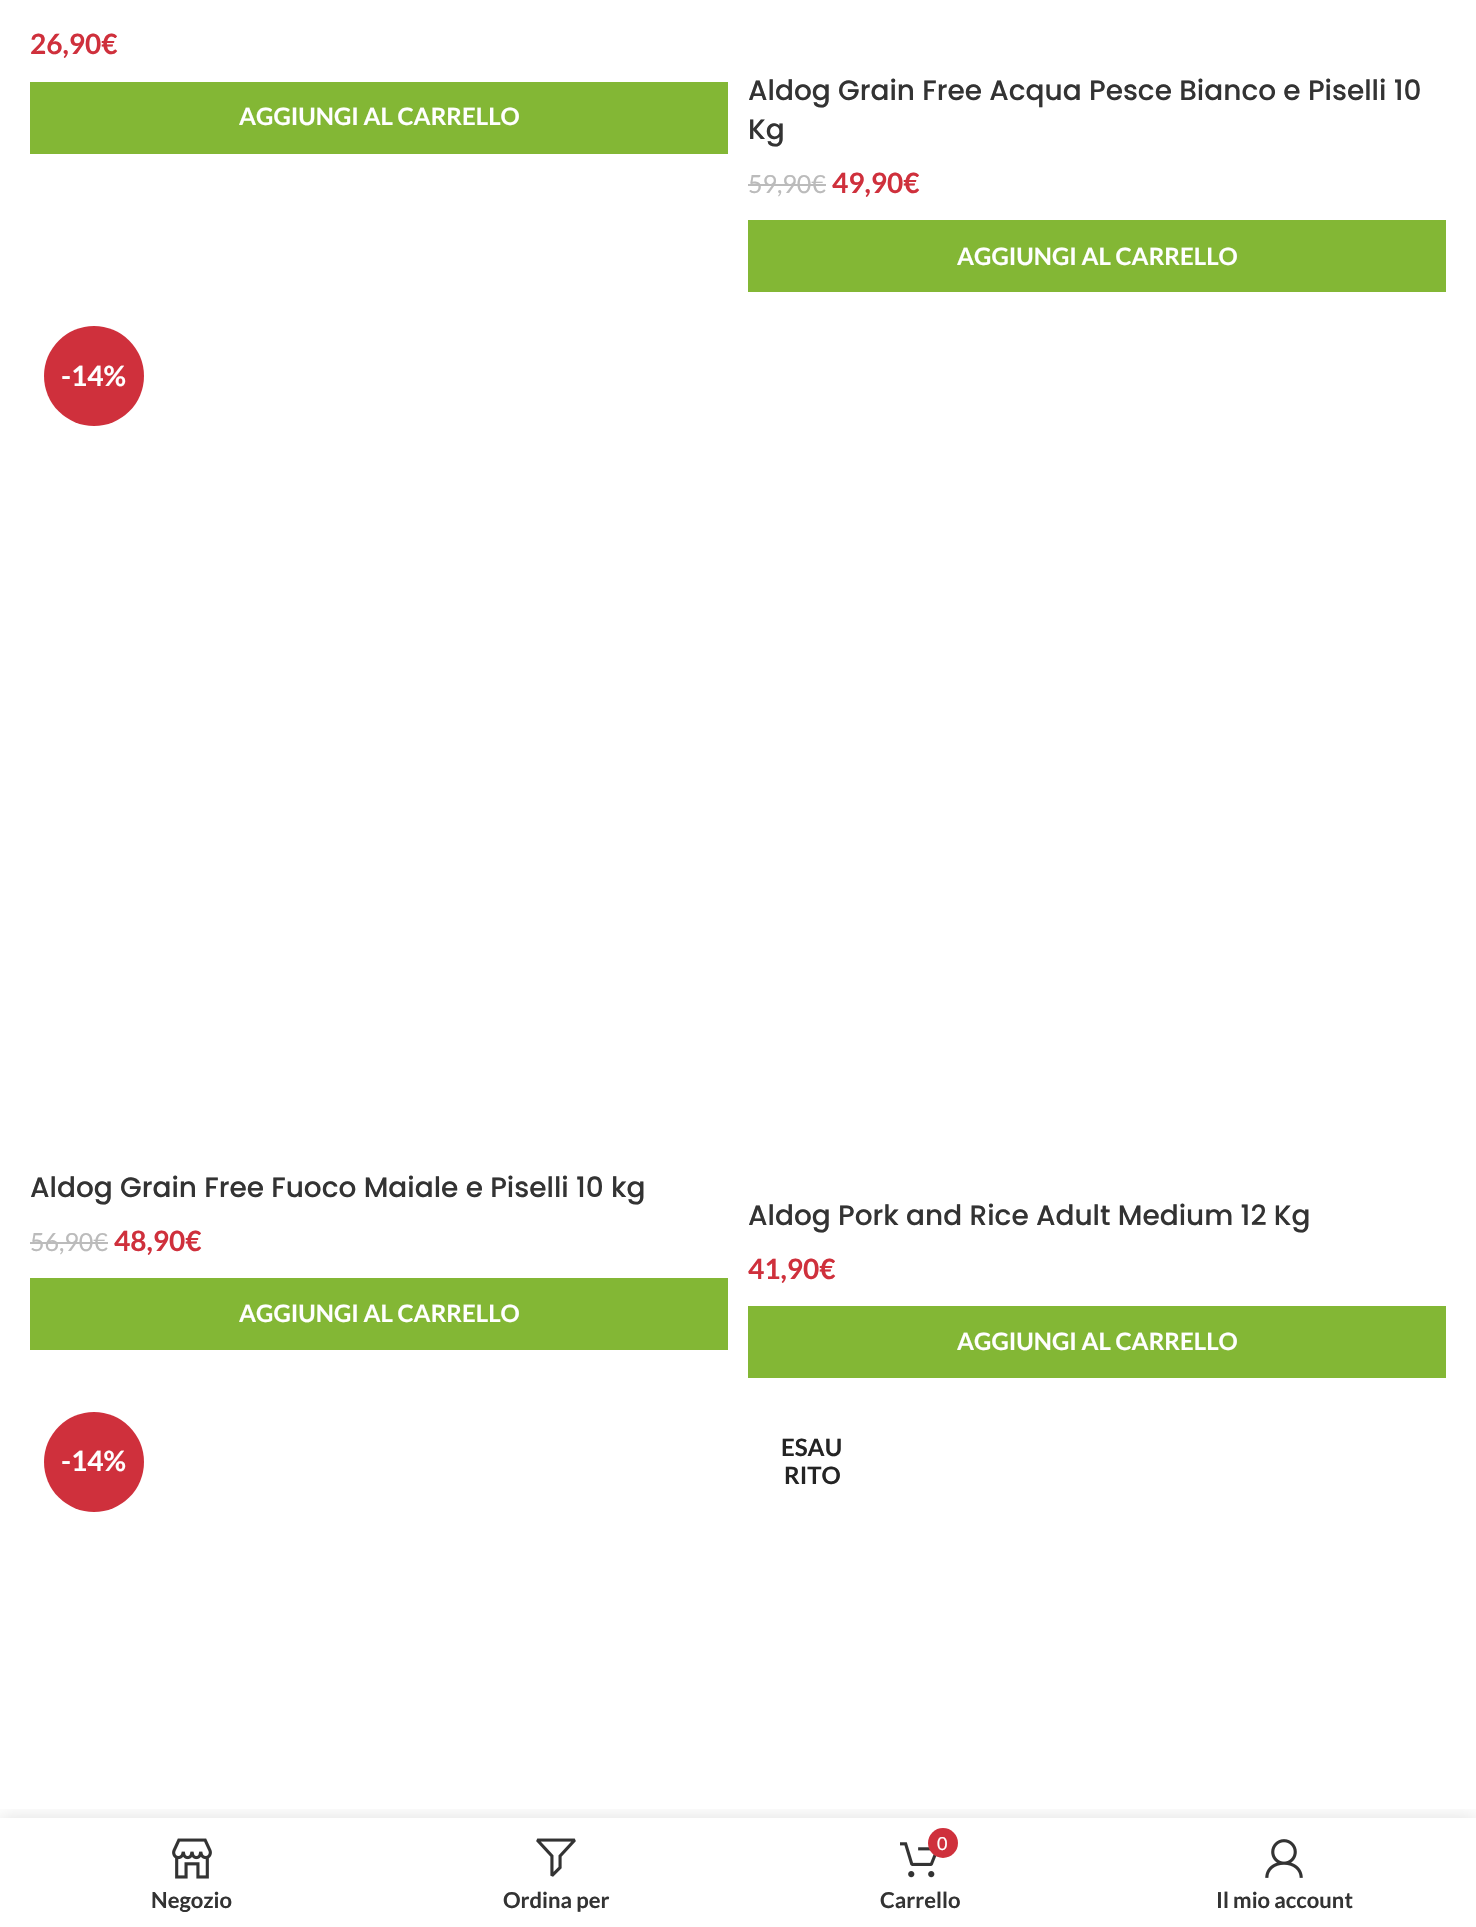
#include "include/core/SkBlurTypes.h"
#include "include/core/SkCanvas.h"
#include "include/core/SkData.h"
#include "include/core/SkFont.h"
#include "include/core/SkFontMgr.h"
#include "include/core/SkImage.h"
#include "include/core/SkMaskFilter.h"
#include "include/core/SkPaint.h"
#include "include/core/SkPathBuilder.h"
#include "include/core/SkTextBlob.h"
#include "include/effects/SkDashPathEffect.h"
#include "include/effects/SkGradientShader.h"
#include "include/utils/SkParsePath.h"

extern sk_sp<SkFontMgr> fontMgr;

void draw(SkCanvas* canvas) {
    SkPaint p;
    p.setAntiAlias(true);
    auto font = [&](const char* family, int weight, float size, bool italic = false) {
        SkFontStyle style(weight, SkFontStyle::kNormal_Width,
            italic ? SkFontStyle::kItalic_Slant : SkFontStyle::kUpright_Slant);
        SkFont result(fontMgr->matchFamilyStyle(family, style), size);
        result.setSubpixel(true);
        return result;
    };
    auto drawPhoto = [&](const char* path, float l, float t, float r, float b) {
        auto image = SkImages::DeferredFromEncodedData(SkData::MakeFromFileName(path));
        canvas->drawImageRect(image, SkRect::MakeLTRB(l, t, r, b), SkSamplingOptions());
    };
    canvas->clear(0xFFFFFFFF);
    auto font1 = font("Lato", 700, 28);
    p.setColor(0xFFCF303C);
    canvas->drawString("26,90€", 30, 54, font1, p);
    p.setColor(0xFF83B735);
    canvas->drawRect(SkRect::MakeLTRB(30, 82, 728, 154), p);
    auto font2 = font("Lato", 700, 24);
    p.setColor(0xFFFFFFFF);
    canvas->drawString("AGGIUNGI AL CARRELLO", 239, 125, font2, p);
    auto font3 = font("Poppins", 500, 28);
    p.setColor(0xFF333333);
    canvas->drawString("Aldog Grain Free Acqua Pesce Bianco e Piselli 10", 748, 100, font3, p);
    canvas->drawString("Kg", 748, 139, font3, p);
    auto font4 = font("Lato", 400, 25);
    p.setColor(0xFFBBBBBB);
    canvas->drawString("59,90€", 748, 193, font4, p);
    canvas->drawRect(SkRect::MakeLTRB(748, 184, 826, 186), p);
    p.setColor(0xFFCF303C);
    canvas->drawString("49,90€", 832, 193, font1, p);
    p.setColor(0xFF83B735);
    canvas->drawRect(SkRect::MakeLTRB(748, 220, 1446, 292), p);
    p.setColor(0xFFFFFFFF);
    canvas->drawString("AGGIUNGI AL CARRELLO", 957, 265, font2, p);
    p.setColor(0xFFCF303C);
    canvas->drawCircle(94, 376, 50, p);
    p.setColor(0xFFFFFFFF);
    canvas->drawString("-14%", 61, 386, font1, p);
    p.setColor(0xFF333333);
    canvas->drawString("Aldog Grain Free Fuoco Maiale e Piselli 10 kg", 30, 1197, font3, p);
    p.setColor(0xFFBBBBBB);
    canvas->drawString("56,90€", 30, 1251, font4, p);
    canvas->drawRect(SkRect::MakeLTRB(30, 1242, 108, 1244), p);
    p.setColor(0xFFCF303C);
    canvas->drawString("48,90€", 114, 1251, font1, p);
    p.setColor(0xFF83B735);
    canvas->drawRect(SkRect::MakeLTRB(30, 1278, 728, 1350), p);
    p.setColor(0xFFFFFFFF);
    canvas->drawString("AGGIUNGI AL CARRELLO", 239, 1322, font2, p);
    p.setColor(0xFF333333);
    canvas->drawString("Aldog Pork and Rice Adult Medium 12 Kg", 748, 1225, font3, p);
    p.setColor(0xFFCF303C);
    canvas->drawString("41,90€", 748, 1279, font1, p);
    p.setColor(0xFF83B735);
    canvas->drawRect(SkRect::MakeLTRB(748, 1306, 1446, 1378), p);
    p.setColor(0xFFFFFFFF);
    canvas->drawString("AGGIUNGI AL CARRELLO", 957, 1350, font2, p);
    p.setColor(0xFFCF303C);
    canvas->drawCircle(94, 1462, 50, p);
    p.setColor(0xFFFFFFFF);
    canvas->drawString("-14%", 61, 1471, font1, p);
    p.setColor(0xFF242424);
    canvas->drawString("ESAU", 781, 1456, font2, p);
    canvas->drawString("RITO", 784, 1484, font2, p);
    canvas->save();
    canvas->clipRect(SkRect::MakeLTRB(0, 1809, 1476, 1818));
    p.setColor(0x1F000000);
    p.setMaskFilter(SkMaskFilter::MakeBlur(kNormal_SkBlurStyle, 9));
    canvas->drawRect(SkRect::MakeLTRB(0, 1818, 1476, 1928), p);
    p.setMaskFilter(nullptr);
    canvas->restore();
    drawPhoto("media/1.png", 172, 1838, 212, 1879);
    auto font5 = font("Lato", 700, 22);
    p.setColor(0xFF333333);
    canvas->drawString("Negozio", 151, 1908, font5, p);
    drawPhoto("media/2.png", 536, 1838, 576, 1877);
    canvas->drawString("Ordina per", 503, 1908, font5, p);
    drawPhoto("media/3.png", 900, 1842, 937, 1878);
    p.setColor(0xFFCF303C);
    canvas->drawCircle(943, 1843, 15, p);
    auto font6 = font("Lato", 400, 18);
    p.setColor(0xFFFFFFFF);
    canvas->drawString("0", 937, 1850, font6, p);
    p.setColor(0xFF333333);
    canvas->drawString("Carrello", 880, 1908, font5, p);
    drawPhoto("media/4.png", 1265, 1839, 1303, 1878);
    canvas->drawString("Il mio account", 1216, 1908, font5, p);
}
